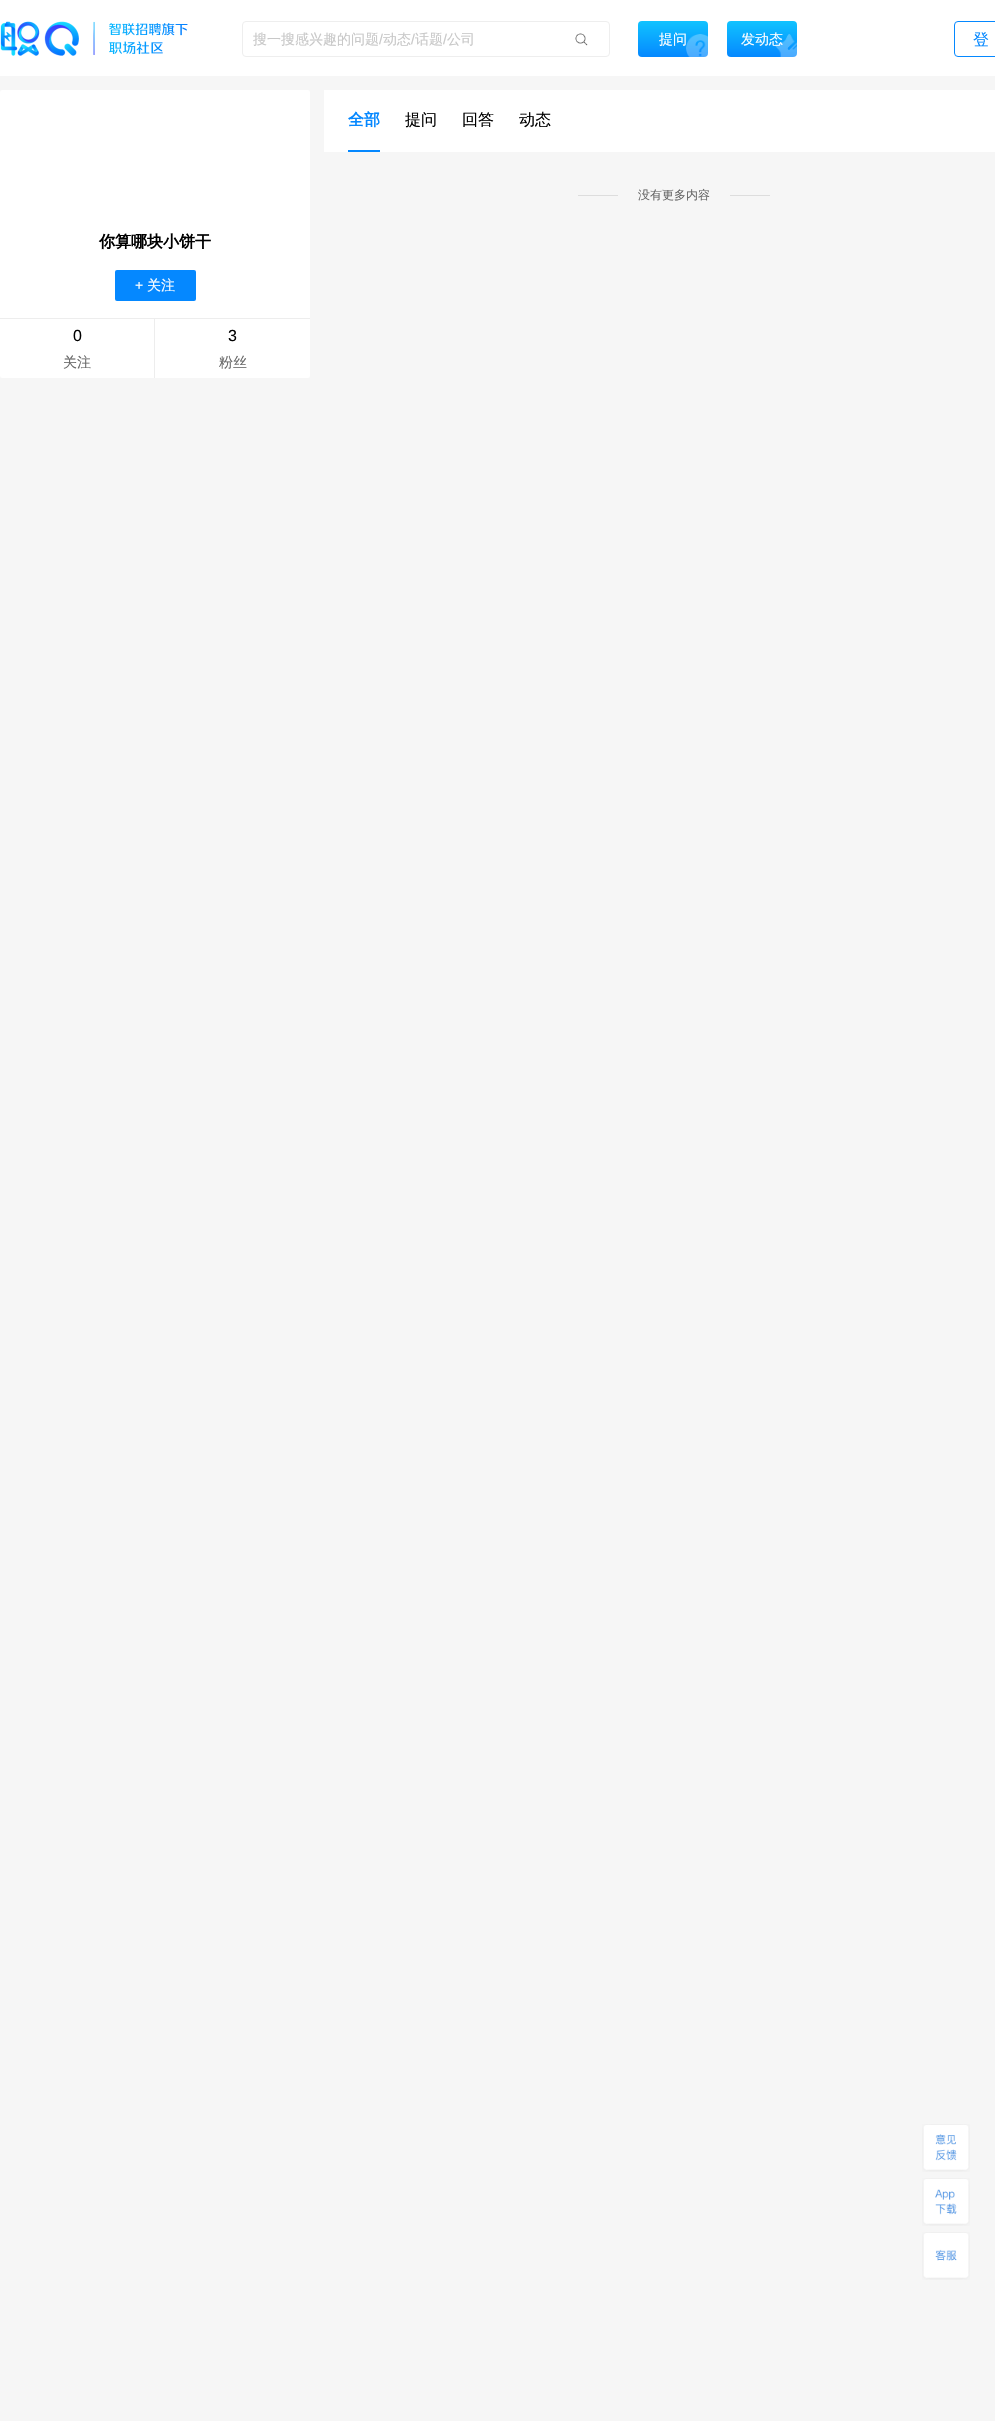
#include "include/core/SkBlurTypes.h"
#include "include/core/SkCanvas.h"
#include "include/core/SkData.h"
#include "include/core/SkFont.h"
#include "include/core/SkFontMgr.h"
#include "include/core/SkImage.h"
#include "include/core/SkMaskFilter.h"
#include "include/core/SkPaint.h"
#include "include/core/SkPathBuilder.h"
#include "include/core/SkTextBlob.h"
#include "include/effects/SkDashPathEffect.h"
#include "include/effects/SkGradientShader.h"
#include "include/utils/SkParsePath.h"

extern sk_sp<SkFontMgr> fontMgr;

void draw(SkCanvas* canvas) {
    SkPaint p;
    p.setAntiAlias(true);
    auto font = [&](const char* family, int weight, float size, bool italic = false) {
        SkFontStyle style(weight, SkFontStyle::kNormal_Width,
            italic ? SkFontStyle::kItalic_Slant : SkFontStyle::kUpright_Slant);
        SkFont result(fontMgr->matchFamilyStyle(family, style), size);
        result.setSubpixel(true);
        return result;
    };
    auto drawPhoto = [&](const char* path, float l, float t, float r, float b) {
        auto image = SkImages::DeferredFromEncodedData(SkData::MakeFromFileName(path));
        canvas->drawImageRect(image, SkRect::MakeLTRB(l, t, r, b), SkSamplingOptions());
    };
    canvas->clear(0xFFF6F6F6);
    p.setColor(0xFFFFFFFF);
    canvas->drawRect(SkRect::MakeLTRB(0, 0, 995, 76), p);
    drawPhoto("media/1.png", 0, 21, 188, 56);
    p.setStyle(SkPaint::kStroke_Style);
    p.setStrokeWidth(1);
    p.setColor(0xFFEEEEEE);
    canvas->drawRoundRect(SkRect::MakeLTRB(242.5f, 21.5f, 609.5f, 56.5f), 3.5f, 3.5f, p);
    auto font1 = font("WenQuanYi Zen Hei", 500, 14);
    p.setStyle(SkPaint::kFill_Style);
    p.setColor(0xFFC8C8C8);
    canvas->drawString("搜一搜感兴趣的问题", 253, 44, font1, p);
    auto font2 = font("Liberation Sans", 400, 14);
    canvas->drawString("/", 379, 44, font2, p);
    canvas->drawString("动态", 383, 44, font1, p);
    canvas->drawString("/", 411, 44, font2, p);
    canvas->drawString("话题", 415, 44, font1, p);
    canvas->drawString("/", 443, 44, font2, p);
    canvas->drawString("公司", 447, 44, font1, p);
    drawPhoto("media/2.png", 575, 33, 588, 46);
    {
        const SkColor colors[] = {0xFF10C3FF, 0xFF0588FF};
        const float stops[] = {0, 1};
        const SkPoint ends[] = {{673, 21}, {673, 57}};
        p.setShader(SkGradientShader::MakeLinear(ends, colors, stops, 2, SkTileMode::kClamp));
        p.setAlpha(255);
    }
    canvas->drawRoundRect(SkRect::MakeLTRB(638, 21, 708, 57), 4, 4, p);
    drawPhoto("media/3.png", 686, 34, 708, 57);
    p.setShader(nullptr);
    p.setColor(0xFFFFFFFF);
    canvas->drawString("提问", 659, 44, font1, p);
    {
        const SkColor colors[] = {0xFF10C3FF, 0xFF0588FF};
        const float stops[] = {0, 1};
        const SkPoint ends[] = {{762, 21}, {762, 57}};
        p.setShader(SkGradientShader::MakeLinear(ends, colors, stops, 2, SkTileMode::kClamp));
        p.setAlpha(255);
    }
    canvas->drawRoundRect(SkRect::MakeLTRB(727, 21, 797, 57), 4, 4, p);
    drawPhoto("media/4.png", 775, 34, 797, 57);
    p.setShader(nullptr);
    p.setColor(0xFFFFFFFF);
    canvas->drawString("发动态", 741, 44, font1, p);
    p.setStyle(SkPaint::kStroke_Style);
    p.setColor(0xFF0588FF);
    canvas->drawRoundRect(SkRect::MakeLTRB(954.5f, 21.5f, 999.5f, 56.5f), 3.5f, 3.5f, p);
    auto font3 = font("WenQuanYi Zen Hei", 500, 16);
    p.setStyle(SkPaint::kFill_Style);
    canvas->drawString("登", 973, 45, font3, p);
    drawPhoto("media/5.png", 922, 2124, 970, 2172);
    drawPhoto("media/6.png", 922, 2178, 970, 2226);
    drawPhoto("media/7.png", 922, 2232, 970, 2280);
    p.setColor(0xFFFFFFFF);
    canvas->drawRect(SkRect::MakeLTRB(324, 90, 995, 152), p);
    p.setColor(0xFF0588FF);
    canvas->drawRect(SkRect::MakeLTRB(348, 150, 380, 152), p);
    auto font4 = font("WenQuanYi Zen Hei", 700, 16);
    canvas->drawString("全部", 348, 125, font4, p);
    p.setColor(0xFF000000);
    {
        const struct { const char* s; float x, y; } items[] = {
            {"提问", 405, 125},
            {"回答", 462, 125},
            {"动态", 519, 125},
        };
        for (auto [s, x, y] : items) {
            canvas->drawString(s, x, y, font3, p);
        }
    }
    p.setColor(0xFFDDDDDD);
    canvas->drawRect(SkRect::MakeLTRB(578, 195, 618, 196), p);
    auto font5 = font("WenQuanYi Zen Hei", 500, 12);
    p.setColor(0xFF666666);
    canvas->drawString("没有更多内容", 638, 199, font5, p);
    p.setColor(0xFFDDDDDD);
    canvas->drawRect(SkRect::MakeLTRB(730, 195, 770, 196), p);
    p.setColor(0xFFFFFFFF);
    canvas->drawRoundRect(SkRect::MakeLTRB(0, 90, 310, 378), 2, 2, p);
    p.setColor(0xFF000000);
    canvas->drawString("你算哪块小饼干", 99, 247, font4, p);
    p.setColor(0xFF0588FF);
    canvas->drawRoundRect(SkRect::MakeLTRB(115, 270, 196, 301), 2, 2, p);
    p.setColor(0xFFFFFFFF);
    canvas->drawString("+", 135, 290, font2, p);
    canvas->drawString("关注", 147, 290, font1, p);
    p.setColor(0xFFEDEDED);
    canvas->drawRect(SkRect::MakeLTRB(0, 318, 310, 319), p);
    canvas->drawRect(SkRect::MakeLTRB(154, 319, 155, 378), p);
    auto font6 = font("Liberation Sans", 400, 16);
    p.setColor(0xFF000000);
    canvas->drawString("0", 73, 341, font6, p);
    p.setColor(0xFF666666);
    canvas->drawString("关注", 63, 367, font1, p);
    p.setColor(0xFF000000);
    canvas->drawString("3", 228, 341, font6, p);
    p.setColor(0xFF666666);
    canvas->drawString("粉丝", 219, 367, font1, p);
}
